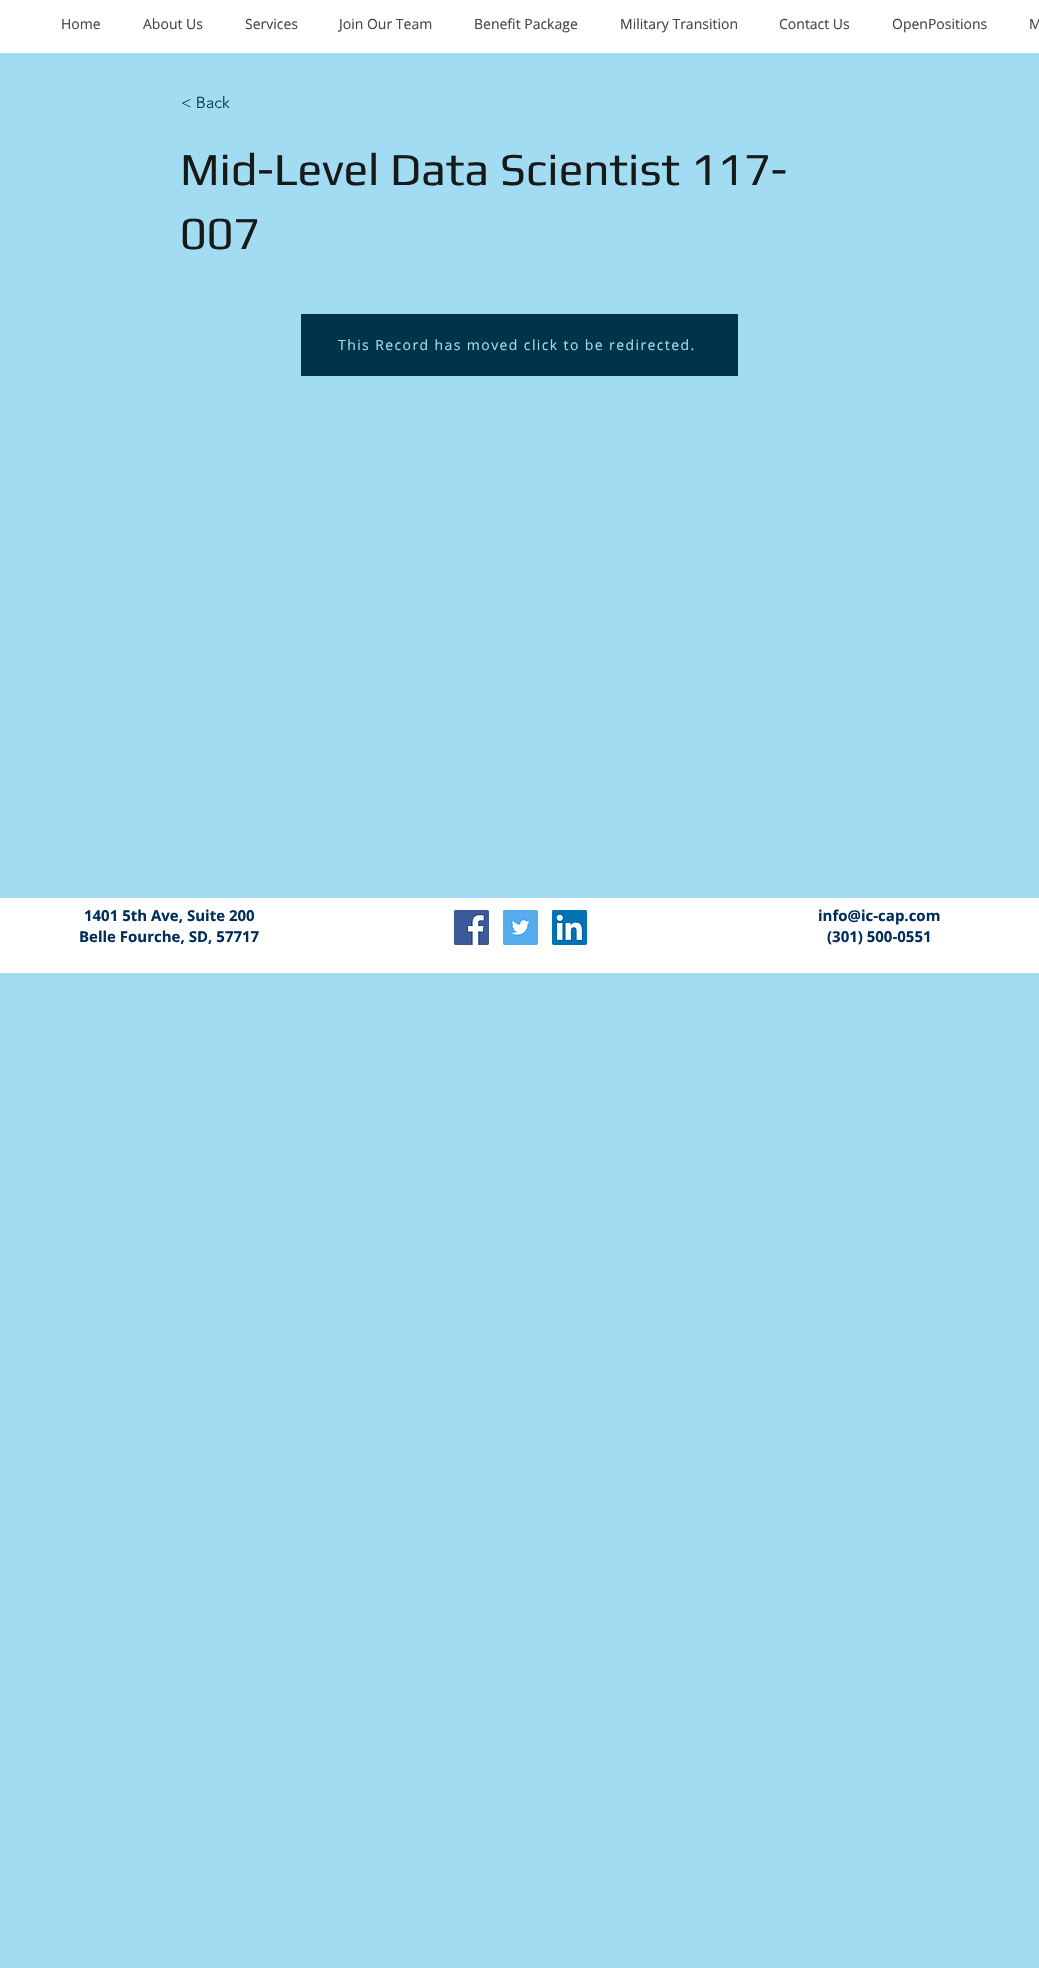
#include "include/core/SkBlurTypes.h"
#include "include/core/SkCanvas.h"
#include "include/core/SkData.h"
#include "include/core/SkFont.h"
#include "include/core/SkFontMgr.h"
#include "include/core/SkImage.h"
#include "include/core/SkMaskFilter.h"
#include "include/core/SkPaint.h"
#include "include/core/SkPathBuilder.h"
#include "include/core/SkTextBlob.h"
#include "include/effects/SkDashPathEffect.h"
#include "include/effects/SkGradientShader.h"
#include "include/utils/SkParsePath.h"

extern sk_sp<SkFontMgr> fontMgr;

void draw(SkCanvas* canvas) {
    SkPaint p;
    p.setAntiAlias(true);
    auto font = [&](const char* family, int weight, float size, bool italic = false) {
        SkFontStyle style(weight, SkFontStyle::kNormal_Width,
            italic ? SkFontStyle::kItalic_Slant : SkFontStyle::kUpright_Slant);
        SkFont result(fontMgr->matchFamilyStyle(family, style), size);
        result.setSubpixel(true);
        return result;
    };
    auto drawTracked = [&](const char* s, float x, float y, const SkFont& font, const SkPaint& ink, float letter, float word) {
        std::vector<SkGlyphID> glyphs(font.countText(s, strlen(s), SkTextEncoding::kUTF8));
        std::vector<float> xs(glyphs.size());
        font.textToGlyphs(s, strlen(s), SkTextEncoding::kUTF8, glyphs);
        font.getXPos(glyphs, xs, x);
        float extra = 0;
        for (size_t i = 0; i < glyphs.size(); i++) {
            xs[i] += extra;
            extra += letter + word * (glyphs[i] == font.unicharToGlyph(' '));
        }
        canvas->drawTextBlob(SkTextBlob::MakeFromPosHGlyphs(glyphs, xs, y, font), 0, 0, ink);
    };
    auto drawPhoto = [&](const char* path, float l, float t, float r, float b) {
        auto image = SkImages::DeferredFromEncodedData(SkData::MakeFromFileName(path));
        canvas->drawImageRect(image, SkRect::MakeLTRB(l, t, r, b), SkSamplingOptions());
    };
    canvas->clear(0xFFA1DCF2);
    p.setColor(0xFFFFFFFF);
    canvas->drawRect(SkRect::MakeLTRB(0, 0, 1039, 53), p);
    auto font1 = font("Open Sans", 400, 14);
    p.setColor(0xFF444444);
    {
        const struct { const char* s; float x, y; } items[] = {
            {"Home", 61, 29},
            {"About Us", 143, 29},
            {"Services", 245, 29},
            {"Join Our Team", 339, 29},
            {"Benefit Package", 474, 29},
            {"Military Transition", 620, 29},
            {"Contact Us", 779, 29},
            {"OpenPositions", 892, 29},
            {"M", 1029, 29},
        };
        for (auto [s, x, y] : items) {
            canvas->drawString(s, x, y, font1, p);
        }
    }
    auto font2 = font("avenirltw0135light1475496", 300, 16);
    p.setColor(0xFF003448);
    canvas->drawString("< Back", 181, 108, font2, p);
    auto font3 = font("Play", 400, 46);
    p.setColor(0xFF181919);
    canvas->drawString("Mid-Level Data Scientist 117-", 180, 185, font3, p);
    canvas->drawString("007", 180, 249, font3, p);
    p.setColor(0xFF003448);
    canvas->drawRect(SkRect::MakeLTRB(301, 314, 738, 376), p);
    p.setColor(0xFFA1DCF2);
    drawTracked("This Record has moved click to be redirected.", 338, 350, font1, p, 1.4f, 0);
    p.setColor(0xFFFFFFFF);
    canvas->drawRect(SkRect::MakeLTRB(0, 898, 1039, 973), p);
    auto font4 = font("Open Sans", 700, 15);
    p.setColor(0xFF002D5C);
    canvas->drawString("1401 5th Ave, Suite 200", 84, 921, font4, p);
    canvas->drawString("Belle Fourche, SD, 57717", 79, 942, font4, p);
    drawPhoto("media/1.png", 454, 910, 489, 945);
    drawPhoto("media/2.png", 503, 910, 538, 945);
    drawPhoto("media/3.png", 552, 910, 587, 945);
    canvas->drawString("info@ic-cap.com", 818, 921, font4, p);
    canvas->drawString("(301) 500-0551", 827, 942, font4, p);
}
